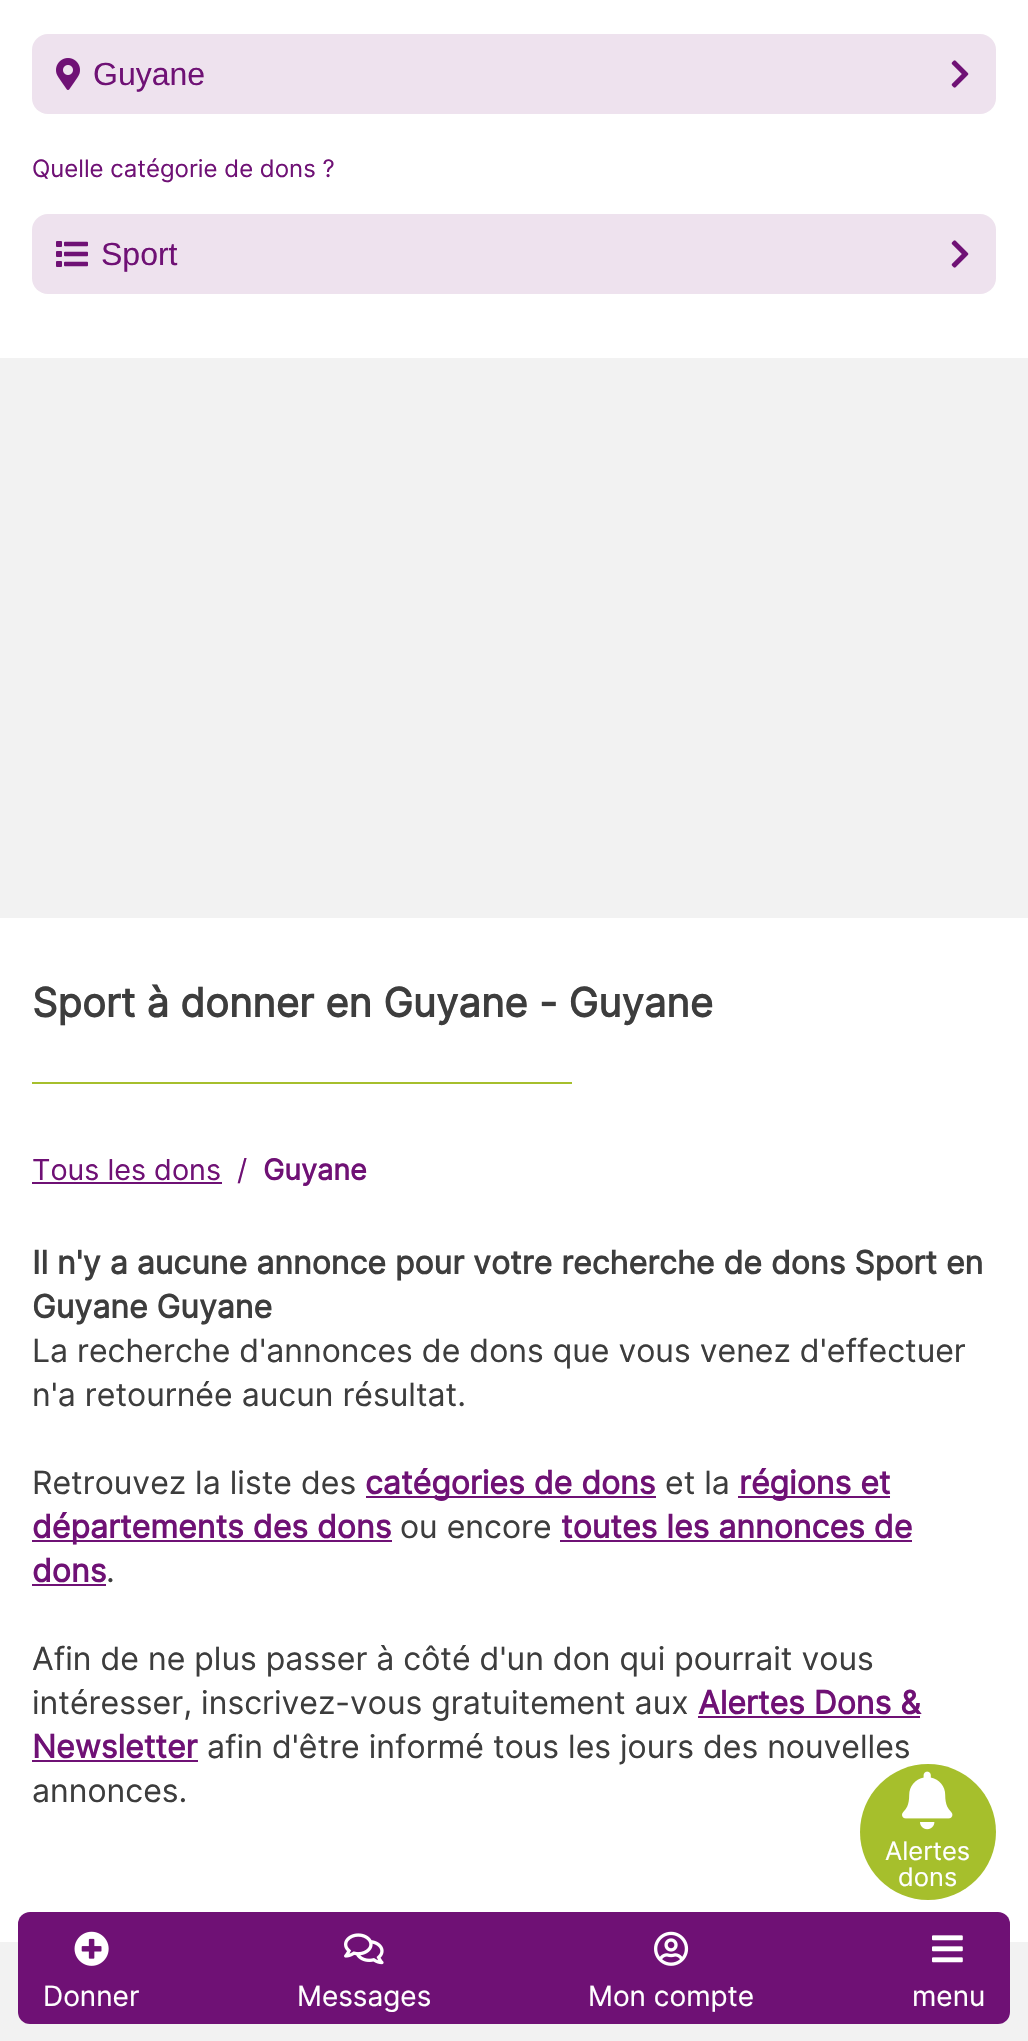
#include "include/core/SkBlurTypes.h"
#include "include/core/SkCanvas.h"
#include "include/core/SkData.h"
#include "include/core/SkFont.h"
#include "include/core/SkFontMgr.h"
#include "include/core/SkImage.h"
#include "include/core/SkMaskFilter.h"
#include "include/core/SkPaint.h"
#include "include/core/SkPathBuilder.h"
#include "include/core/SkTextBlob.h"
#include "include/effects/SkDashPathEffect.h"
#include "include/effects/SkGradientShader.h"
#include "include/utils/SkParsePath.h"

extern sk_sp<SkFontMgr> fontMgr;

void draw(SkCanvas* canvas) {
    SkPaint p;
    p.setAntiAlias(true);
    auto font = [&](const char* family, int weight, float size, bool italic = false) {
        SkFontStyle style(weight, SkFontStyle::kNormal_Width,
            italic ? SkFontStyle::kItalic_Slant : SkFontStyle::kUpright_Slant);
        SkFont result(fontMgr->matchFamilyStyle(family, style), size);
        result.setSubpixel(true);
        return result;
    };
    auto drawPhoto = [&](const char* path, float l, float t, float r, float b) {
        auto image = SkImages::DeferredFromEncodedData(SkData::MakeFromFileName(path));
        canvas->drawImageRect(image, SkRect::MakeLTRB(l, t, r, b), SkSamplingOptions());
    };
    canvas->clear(0xFFFFFFFF);
    p.setColor(0xFFEEE2EE);
    canvas->drawRoundRect(SkRect::MakeLTRB(32, 34, 996, 114), 16, 16, p);
    drawPhoto("media/1.png", 56, 58, 80, 90);
    auto font1 = font("Liberation Sans", 400, 32);
    p.setColor(0xFF6F1175);
    canvas->drawString("Guyane", 93, 85, font1, p);
    drawPhoto("media/2.png", 951, 60, 969, 88);
    auto font2 = font("Inter", 400, 24);
    canvas->drawString("Quelle catégorie de dons ?", 32, 177, font2, p);
    p.setColor(0xFFEEE2EE);
    canvas->drawRoundRect(SkRect::MakeLTRB(32, 214, 996, 294), 16, 16, p);
    drawPhoto("media/3.png", 56, 241, 88, 267);
    p.setColor(0xFF6F1175);
    canvas->drawString("Sport", 101, 265, font1, p);
    drawPhoto("media/2.png", 951, 240, 969, 268);
    auto font3 = font("Inter", 400, 32);
    p.setColor(0xFF3D3D3D);
    canvas->drawString("afin d'être informé tous les jours des nouvelles", 207, 1758, font3, p);
    p.setColor(0xFFA6BF2C);
    canvas->drawCircle(928, 1832, 68, p);
    drawPhoto("media/4.png", 902, 1771, 953, 1830);
    auto font4 = font("Inter", 400, 25.5f);
    p.setColor(0xFFFFFFFF);
    canvas->drawString("Alertes", 885, 1860, font4, p);
    canvas->drawString("dons", 898, 1886, font4, p);
    p.setColor(0xFFF2F2F2);
    canvas->drawRect(SkRect::MakeLTRB(0, 1942, 1028, 2041), p);
    p.setColor(0xFF6F1175);
    canvas->drawRoundRect(SkRect::MakeLTRB(18, 1912, 1010, 2024), 12, 12, p);
    drawPhoto("media/5.png", 74, 1931, 109, 1966);
    auto font5 = font("Inter", 400, 28);
    p.setColor(0xFFFFFFFF);
    canvas->drawString("Donner", 43, 2006, font5, p);
    drawPhoto("media/6.png", 344, 1933, 384, 1965);
    canvas->drawString("Messages", 297, 2006, font5, p);
    drawPhoto("media/7.png", 654, 1931, 689, 1966);
    canvas->drawString("Mon compte", 588, 2006, font5, p);
    drawPhoto("media/8.png", 932, 1935, 963, 1963);
    canvas->drawString("menu", 912, 2006, font5, p);
    p.setColor(0xFFF2F2F2);
    canvas->drawRect(SkRect::MakeLTRB(0, 358, 1028, 918), p);
    auto font6 = font("Inter", 700, 40);
    p.setColor(0xFF3D3D3D);
    canvas->drawString("Sport à donner en Guyane - Guyane", 32, 1017, font6, p);
    p.setColor(0xFFA6BF2C);
    canvas->drawRect(SkRect::MakeLTRB(32, 1082, 572, 1084), p);
    auto font7 = font("Inter", 400, 28.75f);
    p.setColor(0xFF6F1175);
    canvas->drawString("Tous les dons", 32, 1180, font7, p);
    canvas->drawRect(SkRect::MakeLTRB(32, 1182, 222, 1184), p);
    canvas->drawString("/", 237, 1180, font7, p);
    auto font8 = font("Inter", 700, 28.75f);
    canvas->drawString("Guyane", 263, 1180, font8, p);
    auto font9 = font("Inter", 700, 32);
    p.setColor(0xFF3D3D3D);
    canvas->drawString("Il n'y a aucune annonce pour votre recherche de dons Sport en", 32, 1274, font9, p);
    canvas->drawString("Guyane Guyane", 32, 1318, font9, p);
    {
        const struct { const char* s; float x, y; } items[] = {
            {"La recherche d'annonces de dons que vous venez d'effectuer", 32, 1362},
            {"n'a retournée aucun résultat.", 32, 1406},
            {"Retrouvez la liste des", 32, 1494},
        };
        for (auto [s, x, y] : items) {
            canvas->drawString(s, x, y, font3, p);
        }
    }
    p.setColor(0xFF6F1175);
    canvas->drawRect(SkRect::MakeLTRB(366, 1496, 656, 1498), p);
    canvas->drawString("catégories de dons", 365, 1494, font9, p);
    p.setColor(0xFF3D3D3D);
    canvas->drawString("et la", 665, 1494, font3, p);
    p.setColor(0xFF6F1175);
    canvas->drawRect(SkRect::MakeLTRB(738, 1496, 890, 1498), p);
    canvas->drawString("régions et", 739, 1494, font9, p);
    canvas->drawRect(SkRect::MakeLTRB(32, 1540, 392, 1542), p);
    canvas->drawString("départements des dons", 32, 1538, font9, p);
    p.setColor(0xFF3D3D3D);
    canvas->drawString("ou encore", 400, 1538, font3, p);
    p.setColor(0xFF6F1175);
    canvas->drawString("toutes les annonces de", 561, 1538, font9, p);
    canvas->drawRect(SkRect::MakeLTRB(560, 1540, 912, 1542), p);
    canvas->drawString("dons", 32, 1582, font9, p);
    canvas->drawRect(SkRect::MakeLTRB(32, 1584, 106, 1586), p);
    p.setColor(0xFF3D3D3D);
    {
        const struct { const char* s; float x, y; } items[] = {
            {".", 106, 1582},
            {"Afin de ne plus passer à côté d'un don qui pourrait vous", 32, 1670},
            {"intéresser, inscrivez-vous gratuitement aux", 32, 1714},
        };
        for (auto [s, x, y] : items) {
            canvas->drawString(s, x, y, font3, p);
        }
    }
    p.setColor(0xFF6F1175);
    canvas->drawString("Alertes Dons &", 698, 1714, font9, p);
    canvas->drawRect(SkRect::MakeLTRB(698, 1716, 920, 1718), p);
    canvas->drawString("Newsletter", 32, 1758, font9, p);
    canvas->drawRect(SkRect::MakeLTRB(32, 1760, 198, 1762), p);
    p.setColor(0xFF3D3D3D);
    canvas->drawString("annonces.", 32, 1802, font3, p);
}
